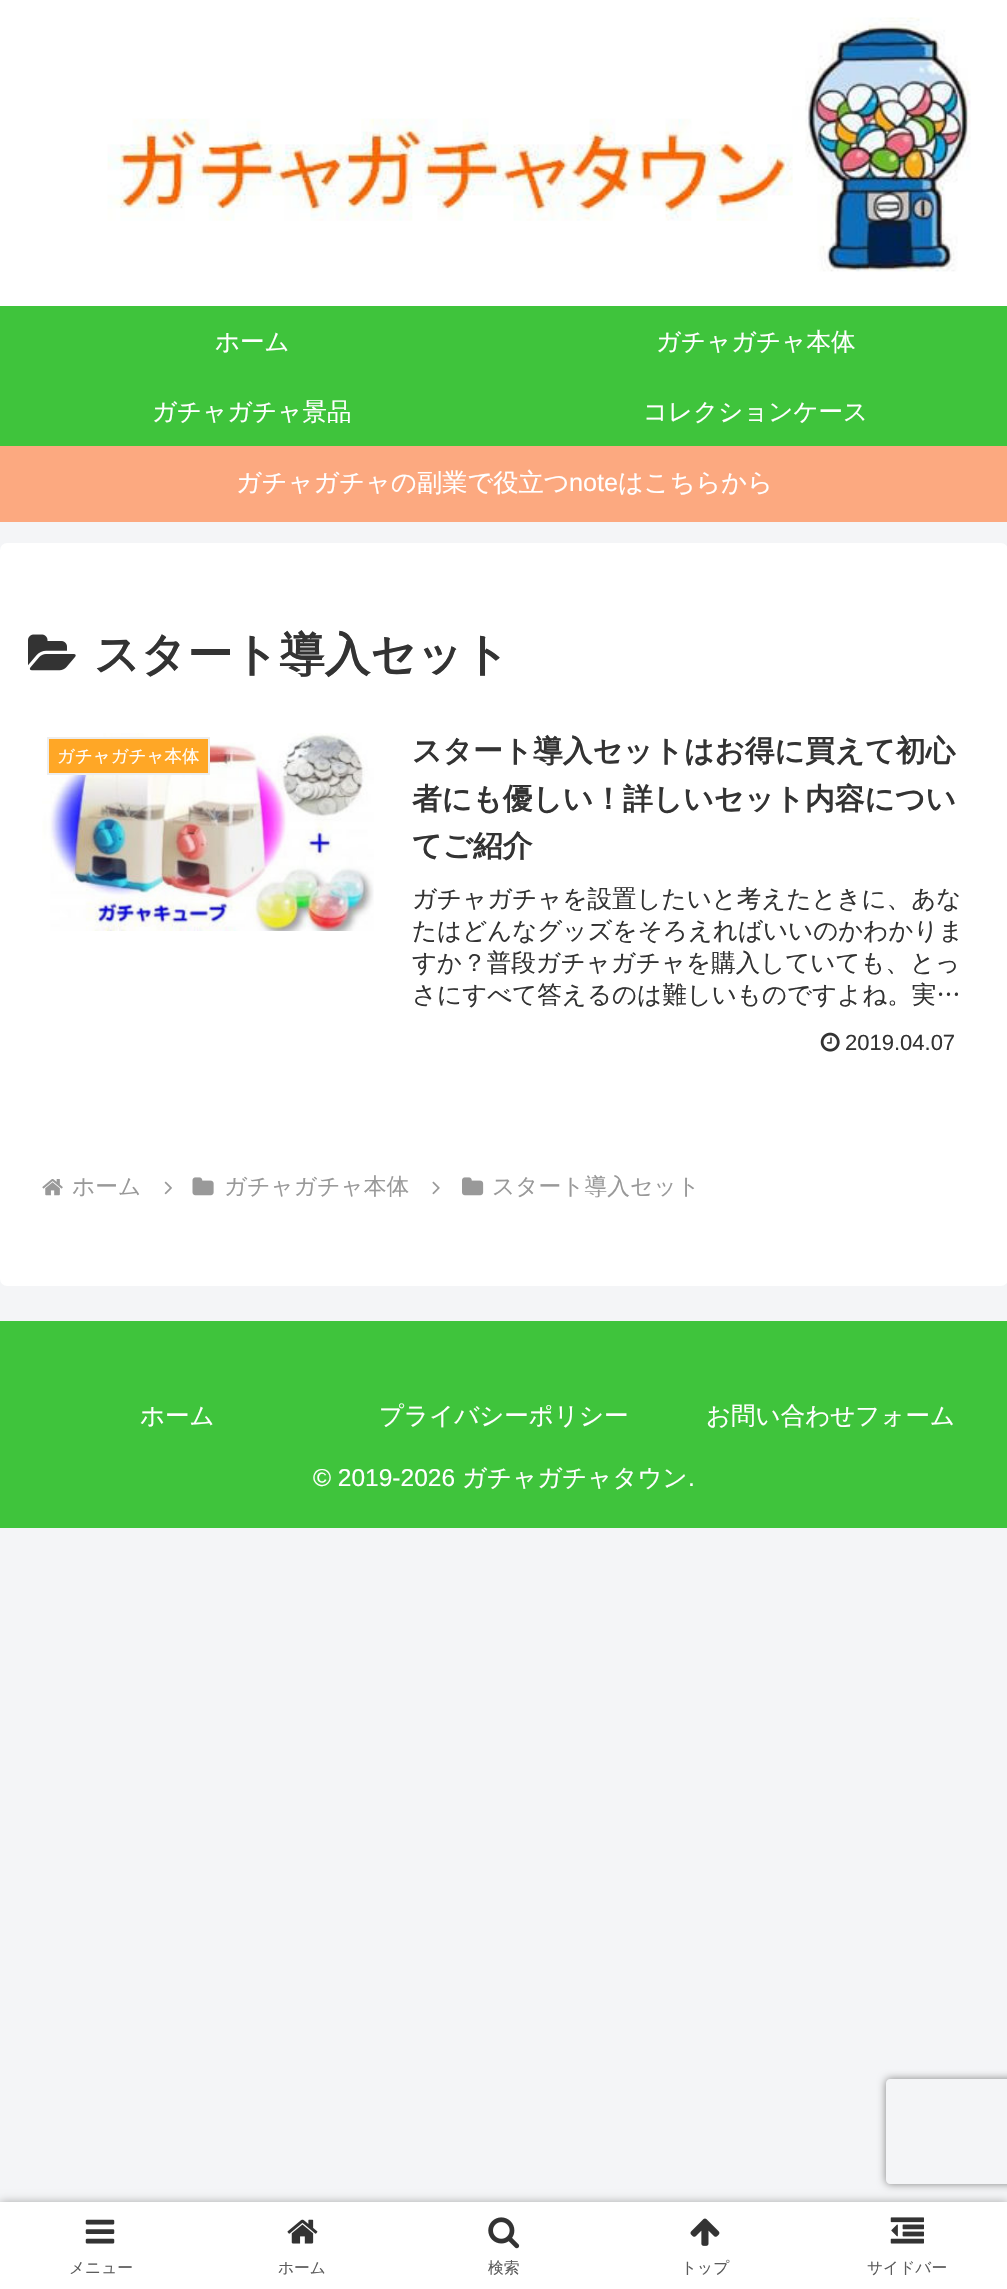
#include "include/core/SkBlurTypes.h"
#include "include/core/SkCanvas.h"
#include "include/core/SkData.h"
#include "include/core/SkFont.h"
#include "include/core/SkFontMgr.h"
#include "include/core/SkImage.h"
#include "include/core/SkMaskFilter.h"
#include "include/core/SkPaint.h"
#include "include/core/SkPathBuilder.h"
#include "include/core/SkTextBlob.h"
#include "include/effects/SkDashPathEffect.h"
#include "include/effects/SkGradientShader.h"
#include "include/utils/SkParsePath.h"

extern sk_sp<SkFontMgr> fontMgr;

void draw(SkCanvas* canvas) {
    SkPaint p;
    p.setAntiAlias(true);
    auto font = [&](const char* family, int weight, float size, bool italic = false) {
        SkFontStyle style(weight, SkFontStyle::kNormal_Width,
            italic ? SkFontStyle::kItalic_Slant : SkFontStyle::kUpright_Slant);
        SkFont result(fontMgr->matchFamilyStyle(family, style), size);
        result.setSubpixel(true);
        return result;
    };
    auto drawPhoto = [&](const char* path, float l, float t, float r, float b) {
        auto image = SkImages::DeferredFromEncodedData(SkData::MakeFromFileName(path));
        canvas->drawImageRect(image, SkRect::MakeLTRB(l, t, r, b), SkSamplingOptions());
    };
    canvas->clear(0xFFF4F5F7);
    p.setColor(0xFFFFFFFF);
    canvas->drawRect(SkRect::MakeLTRB(0, 0, 1007, 306), p);
    drawPhoto("media/1.png", 107, 17, 971, 272);
    p.setColor(0xFF3FC43C);
    canvas->drawRect(SkRect::MakeLTRB(0, 306, 1007, 446), p);
    auto font1 = font("WenQuanYi Zen Hei", 500, 24.5f);
    p.setColor(0xFFFFFFFF);
    {
        const struct { const char* s; float x, y; } items[] = {
            {"ホーム", 215, 350},
            {"ガチャガチャ本体", 656, 350},
            {"ガチャガチャ景品", 152, 420},
            {"コレクションケース", 643, 420},
        };
        for (auto [s, x, y] : items) {
            canvas->drawString(s, x, y, font1, p);
        }
    }
    p.setColor(0xFFFCA980);
    canvas->drawRect(SkRect::MakeLTRB(0, 446, 1007, 522), p);
    auto font2 = font("WenQuanYi Zen Hei", 500, 25.25f);
    p.setColor(0xFFFFFFFF);
    canvas->drawString("ガチャガチャの副業で役立つ", 236, 491, font2, p);
    auto font3 = font("Liberation Sans", 400, 25.25f);
    canvas->drawString("note", 569, 491, font3, p);
    canvas->drawString("はこちらから", 618, 491, font2, p);
    canvas->drawRoundRect(SkRect::MakeLTRB(0, 543, 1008, 1286), 7, 7, p);
    drawPhoto("media/2.png", 28, 634, 76, 671);
    auto font4 = font("WenQuanYi Zen Hei", 700, 45.5f);
    p.setColor(0xFF333333);
    canvas->drawString("スタート導入セット", 94, 670, font4, p);
    drawPhoto("media/3.png", 42, 733, 374, 931);
    p.setColor(0xFFFFA726);
    canvas->drawRect(SkRect::MakeLTRB(48, 738, 209, 774), p);
    p.setStyle(SkPaint::kStroke_Style);
    p.setStrokeWidth(2);
    p.setColor(0xFFEEEEEE);
    canvas->drawRect(SkRect::MakeLTRB(48, 738, 209, 774), p);
    auto font5 = font("WenQuanYi Zen Hei", 500, 17.5f);
    p.setStyle(SkPaint::kFill_Style);
    p.setColor(0xFFFFFFFF);
    canvas->drawString("ガチャガチャ本体", 57, 762, font5, p);
    auto font6 = font("WenQuanYi Zen Hei", 700, 29.75f);
    p.setColor(0xFF333333);
    {
        const struct { const char* s; float x, y; } items[] = {
            {"スタート導入セットはお得に買えて初心", 412, 761},
            {"者にも優しい！詳しいセット内容につい", 412, 809},
            {"てご紹介", 412, 856},
        };
        for (auto [s, x, y] : items) {
            canvas->drawString(s, x, y, font6, p);
        }
    }
    {
        const struct { const char* s; float x, y; } items[] = {
            {"ガチャガチャを設置したいと考えたときに、あな", 412, 907},
            {"たはどんなグッズをそろえればいいのかわかりま", 412, 939},
            {"すか？普段ガチャガチャを購入していても、とっ", 412, 971},
            {"さにすべて答えるのは難しいものですよね。実…", 412, 1003},
        };
        for (auto [s, x, y] : items) {
            canvas->drawString(s, x, y, font1, p);
        }
    }
    drawPhoto("media/4.png", 820, 1032, 840, 1052);
    auto font7 = font("Liberation Sans", 400, 22);
    canvas->drawString("2019.04.07", 845, 1050, font7, p);
    drawPhoto("media/5.png", 42, 1179, 63, 1196);
    auto font8 = font("WenQuanYi Zen Hei", 500, 22.75f);
    p.setColor(0xFF999999);
    canvas->drawString("ホーム", 72, 1194, font8, p);
    drawPhoto("media/6.png", 164, 1181, 172, 1195);
    drawPhoto("media/7.png", 192, 1177, 214, 1196);
    canvas->drawString("ガチャガチャ本体", 224, 1194, font8, p);
    drawPhoto("media/8.png", 432, 1181, 440, 1195);
    drawPhoto("media/9.png", 462, 1177, 484, 1196);
    canvas->drawString("スタート導入セット", 492, 1194, font8, p);
    p.setColor(0xFF3FC43C);
    canvas->drawRect(SkRect::MakeLTRB(0, 1321, 1007, 1528), p);
    p.setColor(0xFFFFFFFF);
    {
        const struct { const char* s; float x, y; } items[] = {
            {"ホーム", 140, 1424},
            {"プライバシーポリシー", 379, 1424},
            {"お問い合わせフォーム", 706, 1424},
        };
        for (auto [s, x, y] : items) {
            canvas->drawString(s, x, y, font1, p);
        }
    }
    auto font9 = font("Liberation Sans", 400, 24.5f);
    canvas->drawString("© 2019-2026", 313, 1486, font9, p);
    canvas->drawString("ガチャガチャタウン", 462, 1486, font1, p);
    canvas->drawString(".", 688, 1486, font9, p);
    p.setColor(0xFFA9A9A9);
    p.setMaskFilter(SkMaskFilter::MakeBlur(kNormal_SkBlurStyle, 4.5f));
    canvas->drawRect(SkRect::MakeLTRB(0, 2202, 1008, 2289), p);
    p.setMaskFilter(nullptr);
    p.setColor(0xFFFFFFFF);
    canvas->drawRect(SkRect::MakeLTRB(0, 2202, 1007, 2289), p);
    drawPhoto("media/10.png", 85, 2219, 115, 2244);
    auto font10 = font("WenQuanYi Zen Hei", 500, 15.75f);
    p.setColor(0xFF5C5C5C);
    canvas->drawString("メニュー", 69, 2273, font10, p);
    drawPhoto("media/11.png", 287, 2219, 318, 2244);
    canvas->drawString("ホーム", 278, 2273, font10, p);
    drawPhoto("media/12.png", 488, 2217, 520, 2249);
    canvas->drawString("検索", 488, 2273, font10, p);
    drawPhoto("media/13.png", 690, 2218, 720, 2246);
    canvas->drawString("トップ", 681, 2273, font10, p);
    drawPhoto("media/14.png", 890, 2217, 924, 2244);
    canvas->drawString("サイドバー", 867, 2273, font10, p);
    canvas->save();
    canvas->clipPath(SkPathBuilder(SkPathFillType::kEvenOdd).moveTo(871, 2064).lineTo(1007, 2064).lineTo(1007, 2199).lineTo(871, 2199).close().moveTo(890, 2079).lineTo(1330, 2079).cubicTo(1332, 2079, 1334, 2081, 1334, 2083).lineTo(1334, 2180).cubicTo(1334, 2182, 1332, 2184, 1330, 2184).lineTo(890, 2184).cubicTo(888, 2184, 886, 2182, 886, 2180).lineTo(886, 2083).cubicTo(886, 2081, 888, 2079, 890, 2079).close().detach(), true);
    p.setColor(0xFF808080);
    p.setMaskFilter(SkMaskFilter::MakeBlur(kNormal_SkBlurStyle, 4.5f));
    canvas->drawRoundRect(SkRect::MakeLTRB(886, 2079, 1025, 2184), 4, 4, p);
    p.setMaskFilter(nullptr);
    canvas->restore();
}
